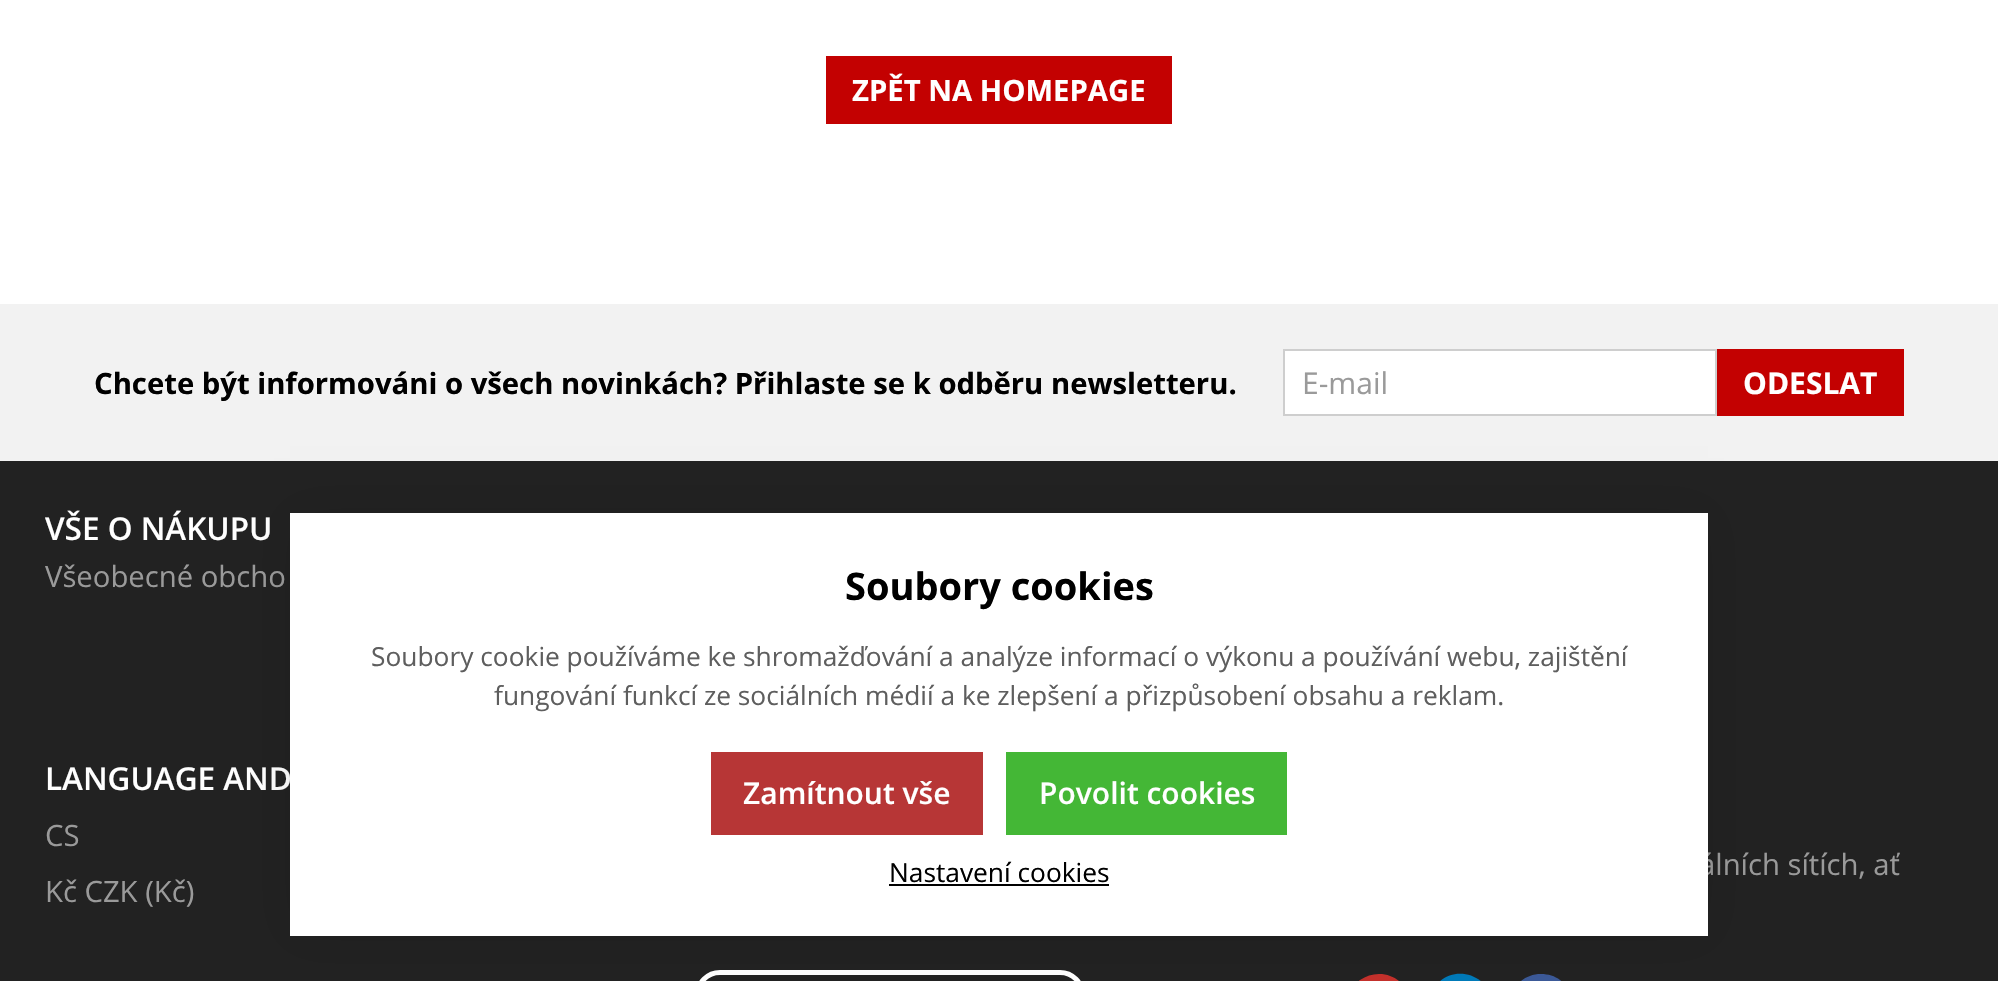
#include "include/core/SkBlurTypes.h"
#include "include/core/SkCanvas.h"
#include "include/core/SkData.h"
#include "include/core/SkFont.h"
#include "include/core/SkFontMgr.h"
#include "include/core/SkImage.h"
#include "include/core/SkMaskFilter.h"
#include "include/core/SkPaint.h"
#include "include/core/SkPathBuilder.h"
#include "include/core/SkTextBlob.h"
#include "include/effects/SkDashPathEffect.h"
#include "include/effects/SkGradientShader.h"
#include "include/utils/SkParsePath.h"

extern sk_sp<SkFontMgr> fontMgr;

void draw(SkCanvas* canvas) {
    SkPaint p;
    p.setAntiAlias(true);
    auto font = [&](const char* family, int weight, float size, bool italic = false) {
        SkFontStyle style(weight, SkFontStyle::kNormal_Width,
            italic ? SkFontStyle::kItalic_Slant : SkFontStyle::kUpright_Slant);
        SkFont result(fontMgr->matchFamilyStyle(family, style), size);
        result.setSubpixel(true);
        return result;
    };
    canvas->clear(0xFFFFFFFF);
    p.setColor(0xFFC30101);
    canvas->drawRect(SkRect::MakeLTRB(826, 56, 1172, 124), p);
    auto font1 = font("Open Sans", 700, 29.25f);
    p.setColor(0xFFFFFFFF);
    canvas->drawString("ZPĚT NA HOMEPAGE", 852, 101, font1, p);
    p.setColor(0xFFF2F2F2);
    canvas->drawRect(SkRect::MakeLTRB(0, 304, 1998, 461), p);
    p.setColor(0xFF000000);
    canvas->drawString("Chcete být informováni o všech novinkách? Přihlaste se k odběru newsletteru.", 94, 394, font1, p);
    p.setColor(0xFFFFFFFF);
    canvas->drawRect(SkRect::MakeLTRB(1284, 350, 1716, 415), p);
    p.setStyle(SkPaint::kStroke_Style);
    p.setStrokeWidth(2);
    p.setColor(0xFFCECECE);
    canvas->drawRect(SkRect::MakeLTRB(1284, 350, 1716, 415), p);
    auto font2 = font("Open Sans", 400, 30);
    p.setStyle(SkPaint::kFill_Style);
    p.setColor(0xFF9A9A9A);
    canvas->drawString("E-mail", 1302, 394, font2, p);
    p.setColor(0xFFC30101);
    canvas->drawRect(SkRect::MakeLTRB(1717, 349, 1904, 416), p);
    auto font3 = font("Open Sans", 700, 30);
    p.setColor(0xFFFFFFFF);
    canvas->drawString("ODESLAT", 1743, 394, font3, p);
    p.setColor(0xFF222222);
    canvas->drawRect(SkRect::MakeLTRB(0, 461, 1998, 981), p);
    auto font4 = font("Open Sans", 600, 31.5f);
    p.setColor(0xFFFFFFFF);
    canvas->drawString("VŠE O NÁKUPU", 45, 540, font4, p);
    auto font5 = font("Open Sans", 400, 29.25f);
    p.setColor(0xFF9A9A9A);
    canvas->drawString("Všeobecné obcho", 45, 587, font5, p);
    p.setColor(0xFFFFFFFF);
    canvas->drawString("LANGUAGE AND", 45, 790, font4, p);
    p.setColor(0xFF9A9A9A);
    {
        const struct { const char* s; float x, y; } items[] = {
            {"CS", 45, 846},
            {"Kč CZK (Kč)", 45, 902},
            {"álních sítích, ať", 1699, 875},
        };
        for (auto [s, x, y] : items) {
            canvas->drawString(s, x, y, font5, p);
        }
    }
    p.setColor(0xFFC4302B);
    canvas->drawPath(SkPathBuilder().moveTo(1379, 974).cubicTo(1409, 974, 1422, 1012, 1398, 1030).cubicTo(1393, 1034, 1386, 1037, 1379, 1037).cubicTo(1349, 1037, 1336, 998, 1360, 980).cubicTo(1366, 976, 1372, 974, 1379, 974).close().detach(), p);
    p.setColor(0xFF007AB9);
    canvas->drawPath(SkPathBuilder().moveTo(1492, 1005).cubicTo(1492, 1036, 1451, 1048, 1434, 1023).cubicTo(1431, 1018, 1429, 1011, 1429, 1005).cubicTo(1429, 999, 1431, 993, 1434, 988).cubicTo(1451, 962, 1492, 974, 1492, 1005).close().detach(), p);
    p.setColor(0xFF3B5998);
    canvas->drawPath(SkPathBuilder().moveTo(1541, 974).cubicTo(1548, 974, 1555, 976, 1560, 980).cubicTo(1584, 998, 1571, 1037, 1541, 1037).cubicTo(1534, 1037, 1528, 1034, 1522, 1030).cubicTo(1498, 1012, 1511, 974, 1541, 974).close().detach(), p);
    p.setStyle(SkPaint::kStroke_Style);
    p.setStrokeWidth(5);
    p.setColor(0xFFFFFFFF);
    canvas->drawRoundRect(SkRect::MakeLTRB(697.5f, 972.5f, 1082.5f, 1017.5f), 31, 31, p);
    p.setStyle(SkPaint::kFill_Style);
    p.setColor(0x1A000000);
    p.setMaskFilter(SkMaskFilter::MakeBlur(kNormal_SkBlurStyle, 22.5f));
    canvas->drawRect(SkRect::MakeLTRB(290, 513, 1708, 936), p);
    p.setMaskFilter(nullptr);
    p.setColor(0xFFFFFFFF);
    canvas->drawRect(SkRect::MakeLTRB(290, 513, 1708, 936), p);
    auto font6 = font("Open Sans", 700, 38);
    p.setColor(0xFF000000);
    canvas->drawString("Soubory cookies", 845, 600, font6, p);
    auto font7 = font("Open Sans", 400, 26.3f);
    p.setColor(0xFF5E5E5E);
    canvas->drawString("Soubory cookie používáme ke shromažďování a analýze informací o výkonu a používání webu, zajištění", 371, 666, font7, p);
    canvas->drawString("fungování funkcí ze sociálních médií a ke zlepšení a přizpůsobení obsahu a reklam.", 494, 705, font7, p);
    p.setColor(0xFFB73636);
    canvas->drawRect(SkRect::MakeLTRB(711, 752, 983, 835), p);
    auto font8 = font("Open Sans", 600, 30);
    p.setColor(0xFFFFFFFF);
    canvas->drawString("Zamítnout vše", 743, 804, font8, p);
    p.setColor(0xFF44B736);
    canvas->drawRect(SkRect::MakeLTRB(1006, 752, 1287, 835), p);
    p.setColor(0xFFFFFFFF);
    canvas->drawString("Povolit cookies", 1039, 804, font8, p);
    p.setColor(0xFF000000);
    canvas->drawString("Nastavení cookies", 889, 882, font7, p);
    canvas->drawRect(SkRect::MakeLTRB(889, 884, 1109, 886), p);
}
